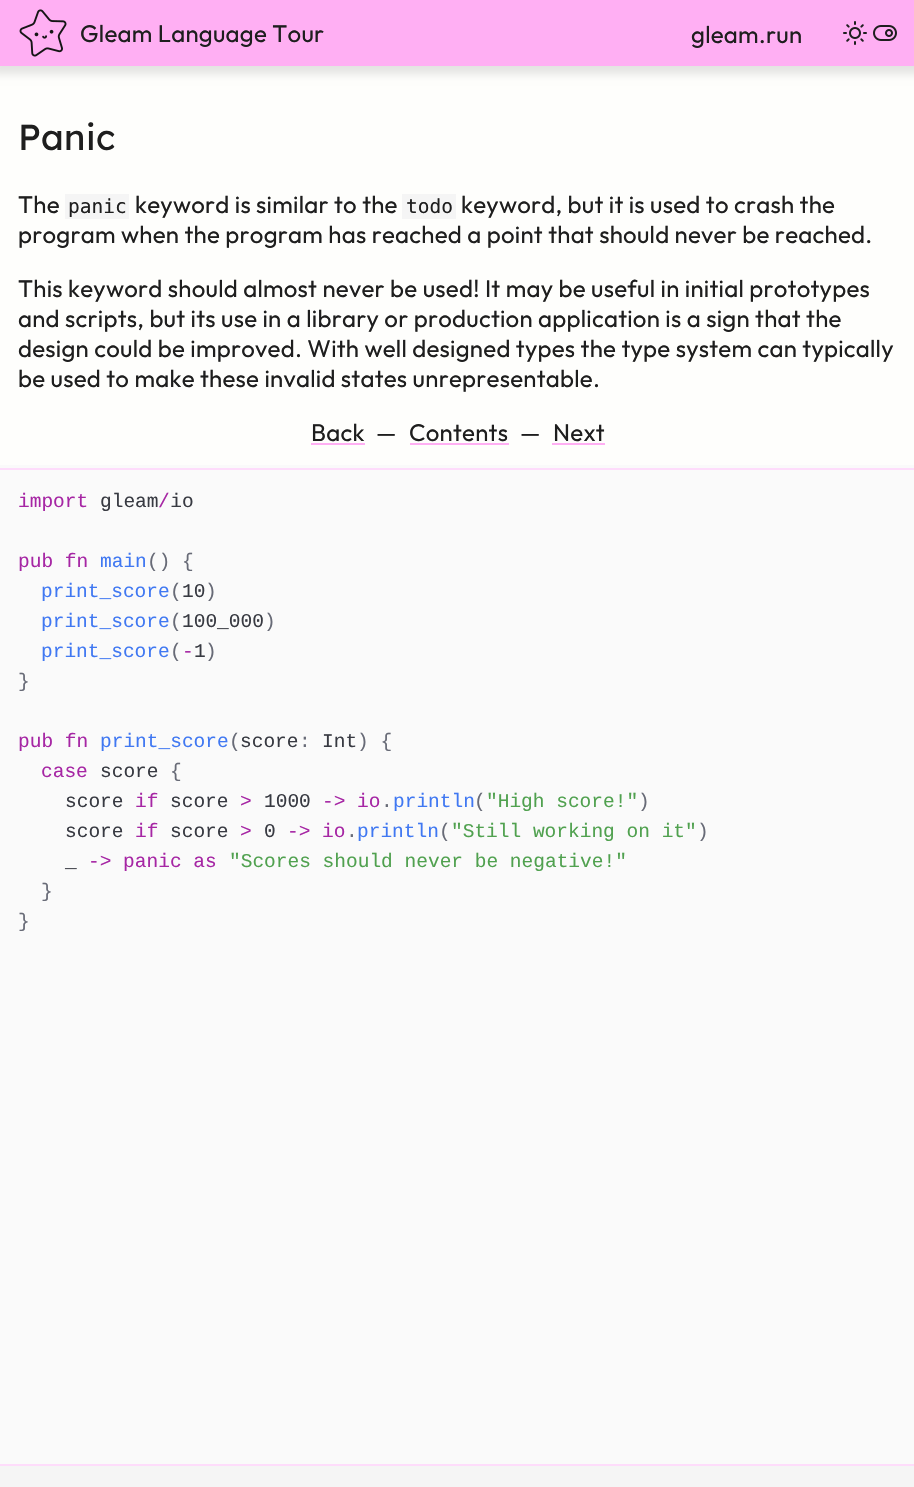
#include "include/core/SkBlurTypes.h"
#include "include/core/SkCanvas.h"
#include "include/core/SkData.h"
#include "include/core/SkFont.h"
#include "include/core/SkFontMgr.h"
#include "include/core/SkImage.h"
#include "include/core/SkMaskFilter.h"
#include "include/core/SkPaint.h"
#include "include/core/SkPathBuilder.h"
#include "include/core/SkTextBlob.h"
#include "include/effects/SkDashPathEffect.h"
#include "include/effects/SkGradientShader.h"
#include "include/utils/SkParsePath.h"

extern sk_sp<SkFontMgr> fontMgr;

void draw(SkCanvas* canvas) {
    SkPaint p;
    p.setAntiAlias(true);
    auto font = [&](const char* family, int weight, float size, bool italic = false) {
        SkFontStyle style(weight, SkFontStyle::kNormal_Width,
            italic ? SkFontStyle::kItalic_Slant : SkFontStyle::kUpright_Slant);
        SkFont result(fontMgr->matchFamilyStyle(family, style), size);
        result.setSubpixel(true);
        return result;
    };
    auto drawTracked = [&](const char* s, float x, float y, const SkFont& font, const SkPaint& ink, float letter, float word) {
        std::vector<SkGlyphID> glyphs(font.countText(s, strlen(s), SkTextEncoding::kUTF8));
        std::vector<float> xs(glyphs.size());
        font.textToGlyphs(s, strlen(s), SkTextEncoding::kUTF8, glyphs);
        font.getXPos(glyphs, xs, x);
        float extra = 0;
        for (size_t i = 0; i < glyphs.size(); i++) {
            xs[i] += extra;
            extra += letter + word * (glyphs[i] == font.unicharToGlyph(' '));
        }
        canvas->drawTextBlob(SkTextBlob::MakeFromPosHGlyphs(glyphs, xs, y, font), 0, 0, ink);
    };
    auto drawPhoto = [&](const char* path, float l, float t, float r, float b) {
        auto image = SkImages::DeferredFromEncodedData(SkData::MakeFromFileName(path));
        canvas->drawImageRect(image, SkRect::MakeLTRB(l, t, r, b), SkSamplingOptions());
    };
    canvas->clear(0xFFFEFEFC);
    p.setColor(0x1A000000);
    p.setMaskFilter(SkMaskFilter::MakeBlur(kNormal_SkBlurStyle, 4));
    canvas->drawRect(SkRect::MakeLTRB(-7, -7, 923, 74), p);
    p.setMaskFilter(nullptr);
    p.setColor(0xFFFFAFF3);
    canvas->drawRect(SkRect::MakeLTRB(0, 0, 914, 66), p);
    drawPhoto("media/1.png", 19, 9, 67, 57);
    auto font1 = font("Outfit", 100, 24);
    p.setColor(0xFF1E1E1E);
    drawTracked("Gleam Language Tour", 80, 42, font1, p, 0.25f, 0);
    drawTracked("gleam.run", 691, 43, font1, p, 0.25f, 0);
    drawPhoto("media/2.png", 843, 21, 867, 45);
    drawPhoto("media/3.png", 873, 25, 897, 41);
    auto font2 = font("Lexend", 400, 36);
    drawTracked("Panic", 18, 150, font2, p, 0.25f, 0);
    drawTracked("The", 18, 213, font1, p, 0.25f, 0);
    p.setColor(0xFFF5F5F5);
    canvas->drawRect(SkRect::MakeLTRB(65, 194, 129, 219), p);
    auto font3 = font("DejaVu Sans Mono", 400, 19.5f);
    p.setColor(0xFF1E1E1E);
    canvas->drawString("panic", 68, 213, font3, p);
    drawTracked("keyword is similar to the", 135, 213, font1, p, 0.25f, 0);
    p.setColor(0xFFF5F5F5);
    canvas->drawRect(SkRect::MakeLTRB(402, 194, 456, 219), p);
    p.setColor(0xFF1E1E1E);
    canvas->drawString("todo", 406, 213, font3, p);
    {
        const struct { const char* s; float x, y; } items[] = {
            {"keyword, but it is used to crash the", 461, 213},
            {"program when the program has reached a point that should never be reached.", 18, 243},
            {"This keyword should almost never be used! It may be useful in initial prototypes", 18, 297},
            {"and scripts, but its use in a library or production application is a sign that the", 18, 327},
            {"design could be improved. With well designed types the type system can typically", 18, 357},
            {"be used to make these invalid states unrepresentable.", 18, 387},
            {"Back", 311, 441},
        };
        for (auto [s, x, y] : items) {
            drawTracked(s, x, y, font1, p, 0.25f, 0);
        }
    }
    p.setColor(0xFFFFAFF3);
    canvas->drawRect(SkRect::MakeLTRB(311, 443, 365, 445), p);
    p.setColor(0xFF1E1E1E);
    drawTracked("—", 376, 441, font1, p, 0.25f, 0);
    drawTracked("Contents", 409, 441, font1, p, 0.25f, 0);
    p.setColor(0xFFFFAFF3);
    canvas->drawRect(SkRect::MakeLTRB(410, 443, 509, 445), p);
    p.setColor(0xFF1E1E1E);
    drawTracked("—", 520, 441, font1, p, 0.25f, 0);
    drawTracked("Next", 553, 441, font1, p, 0.25f, 0);
    {
        const struct { float l, t, r, b; SkColor color; } items[] = {
            {552, 443, 605, 445, 0xFFFFAFF3},
            {0, 465, 914, 1464, 0xFFFAFAFA},
            {0, 468, 914, 470, 0xFFFEDCFB},
        };
        for (auto [l, t, r, b, color] : items) {
            p.setColor(color);
            canvas->drawRect(SkRect::MakeLTRB(l, t, r, b), p);
        }
    }
    auto font4 = font("Liberation Mono", 400, 19.5f);
    p.setColor(0xFFA626A4);
    canvas->drawString("import", 18, 507, font4, p);
    p.setColor(0xFF383A42);
    canvas->drawString("gleam io", 100, 507, font4, p);
    p.setColor(0xFFA626A4);
    canvas->drawString("/", 158, 507, font4, p);
    canvas->drawString("pub fn", 18, 567, font4, p);
    p.setColor(0xFF4078F2);
    canvas->drawString("main", 100, 567, font4, p);
    p.setColor(0xFF686B77);
    canvas->drawString("() {", 147, 567, font4, p);
    p.setColor(0xFF4078F2);
    canvas->drawString("print_score", 41, 597, font4, p);
    p.setColor(0xFF686B77);
    canvas->drawString("(", 170, 597, font4, p);
    p.setColor(0xFF383A42);
    canvas->drawString("10", 182, 597, font4, p);
    p.setColor(0xFF686B77);
    canvas->drawString(")", 205, 597, font4, p);
    p.setColor(0xFF4078F2);
    canvas->drawString("print_score", 41, 627, font4, p);
    p.setColor(0xFF686B77);
    canvas->drawString("(", 170, 627, font4, p);
    p.setColor(0xFF383A42);
    canvas->drawString("100_000", 182, 627, font4, p);
    p.setColor(0xFF686B77);
    canvas->drawString(")", 264, 627, font4, p);
    p.setColor(0xFF4078F2);
    canvas->drawString("print_score", 41, 657, font4, p);
    p.setColor(0xFF686B77);
    canvas->drawString("(", 170, 657, font4, p);
    p.setColor(0xFFA626A4);
    canvas->drawString("-", 182, 657, font4, p);
    p.setColor(0xFF383A42);
    canvas->drawString("1", 194, 657, font4, p);
    p.setColor(0xFF686B77);
    canvas->drawString(")", 205, 657, font4, p);
    canvas->drawString("}", 18, 687, font4, p);
    p.setColor(0xFFA626A4);
    canvas->drawString("pub fn", 18, 747, font4, p);
    p.setColor(0xFF4078F2);
    canvas->drawString("print_score", 100, 747, font4, p);
    p.setColor(0xFF686B77);
    canvas->drawString("(", 229, 747, font4, p);
    p.setColor(0xFF383A42);
    canvas->drawString("score", 240, 747, font4, p);
    p.setColor(0xFF686B77);
    canvas->drawString(":", 299, 747, font4, p);
    p.setColor(0xFF383A42);
    canvas->drawString("Int", 322, 747, font4, p);
    p.setColor(0xFF686B77);
    canvas->drawString(") {", 357, 747, font4, p);
    p.setColor(0xFFA626A4);
    canvas->drawString("case", 41, 777, font4, p);
    p.setColor(0xFF383A42);
    canvas->drawString("score", 100, 777, font4, p);
    p.setColor(0xFF686B77);
    canvas->drawString("{", 170, 777, font4, p);
    p.setColor(0xFF383A42);
    canvas->drawString("score", 65, 807, font4, p);
    p.setColor(0xFFA626A4);
    canvas->drawString("if", 135, 807, font4, p);
    p.setColor(0xFF383A42);
    canvas->drawString("score", 170, 807, font4, p);
    p.setColor(0xFFA626A4);
    canvas->drawString(">", 240, 807, font4, p);
    p.setColor(0xFF383A42);
    canvas->drawString("1000", 264, 807, font4, p);
    p.setColor(0xFFA626A4);
    canvas->drawString("-> io", 322, 807, font4, p);
    p.setColor(0xFF686B77);
    canvas->drawString(".", 381, 807, font4, p);
    p.setColor(0xFF4078F2);
    canvas->drawString("println", 393, 807, font4, p);
    p.setColor(0xFF686B77);
    canvas->drawString("(", 474, 807, font4, p);
    p.setColor(0xFF50A14F);
    canvas->drawString("\"High score!\"", 486, 807, font4, p);
    p.setColor(0xFF686B77);
    canvas->drawString(")", 638, 807, font4, p);
    p.setColor(0xFF383A42);
    canvas->drawString("score", 65, 837, font4, p);
    p.setColor(0xFFA626A4);
    canvas->drawString("if", 135, 837, font4, p);
    p.setColor(0xFF383A42);
    canvas->drawString("score", 170, 837, font4, p);
    p.setColor(0xFFA626A4);
    canvas->drawString(">", 240, 837, font4, p);
    p.setColor(0xFF383A42);
    canvas->drawString("0", 264, 837, font4, p);
    p.setColor(0xFFA626A4);
    canvas->drawString("-> io", 287, 837, font4, p);
    p.setColor(0xFF686B77);
    canvas->drawString(".", 346, 837, font4, p);
    p.setColor(0xFF4078F2);
    canvas->drawString("println", 357, 837, font4, p);
    p.setColor(0xFF686B77);
    canvas->drawString("(", 439, 837, font4, p);
    p.setColor(0xFF50A14F);
    canvas->drawString("\"Still working on it\"", 451, 837, font4, p);
    p.setColor(0xFF686B77);
    canvas->drawString(")", 697, 837, font4, p);
    p.setColor(0xFF383A42);
    canvas->drawString("_", 65, 867, font4, p);
    p.setColor(0xFFA626A4);
    canvas->drawString("-> panic as", 88, 867, font4, p);
    p.setColor(0xFF50A14F);
    canvas->drawString("\"Scores should never be negative!\"", 229, 867, font4, p);
    p.setColor(0xFF686B77);
    canvas->drawString("}", 41, 897, font4, p);
    canvas->drawString("}", 18, 927, font4, p);
    p.setColor(0xFFF5F5F5);
    canvas->drawRect(SkRect::MakeLTRB(0, 1466, 914, 1487), p);
    p.setColor(0xFFFEDCFB);
    canvas->drawRect(SkRect::MakeLTRB(0, 1464, 914, 1466), p);
}
